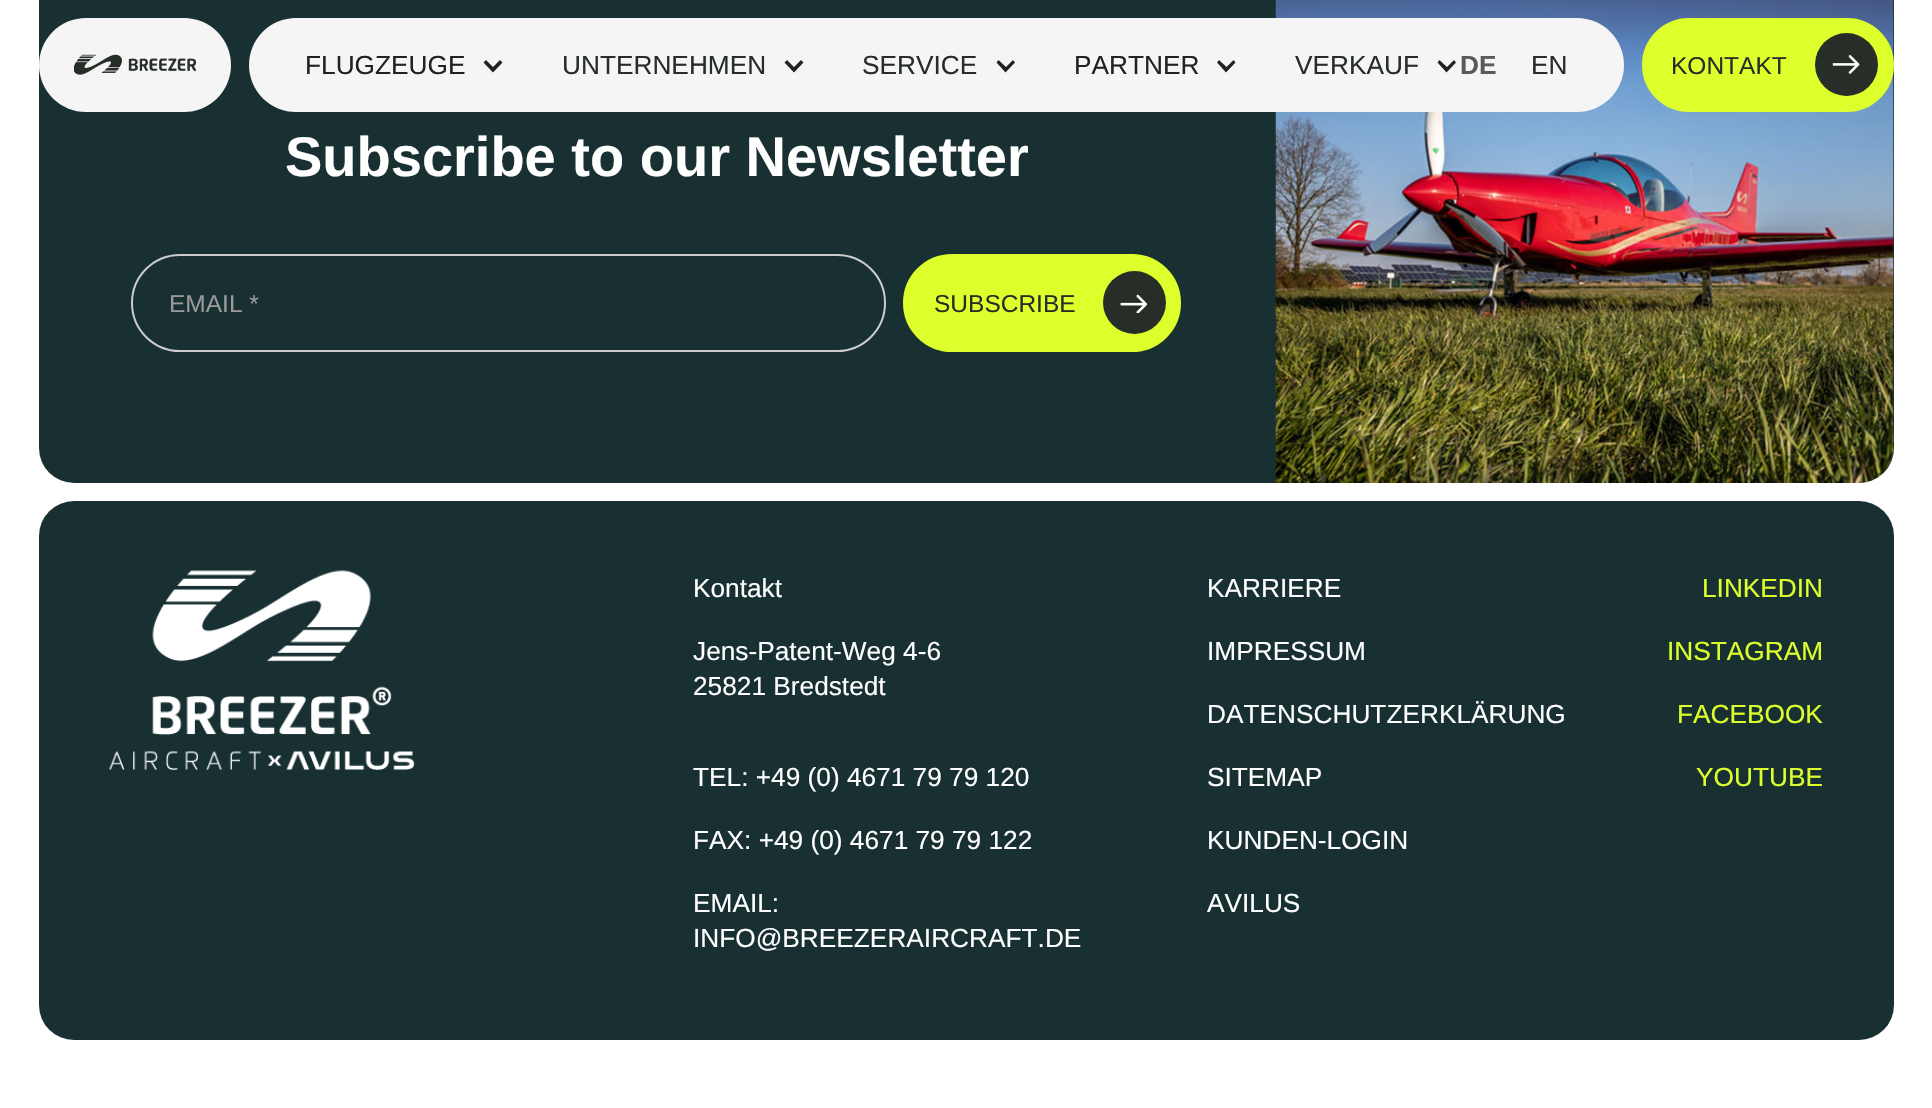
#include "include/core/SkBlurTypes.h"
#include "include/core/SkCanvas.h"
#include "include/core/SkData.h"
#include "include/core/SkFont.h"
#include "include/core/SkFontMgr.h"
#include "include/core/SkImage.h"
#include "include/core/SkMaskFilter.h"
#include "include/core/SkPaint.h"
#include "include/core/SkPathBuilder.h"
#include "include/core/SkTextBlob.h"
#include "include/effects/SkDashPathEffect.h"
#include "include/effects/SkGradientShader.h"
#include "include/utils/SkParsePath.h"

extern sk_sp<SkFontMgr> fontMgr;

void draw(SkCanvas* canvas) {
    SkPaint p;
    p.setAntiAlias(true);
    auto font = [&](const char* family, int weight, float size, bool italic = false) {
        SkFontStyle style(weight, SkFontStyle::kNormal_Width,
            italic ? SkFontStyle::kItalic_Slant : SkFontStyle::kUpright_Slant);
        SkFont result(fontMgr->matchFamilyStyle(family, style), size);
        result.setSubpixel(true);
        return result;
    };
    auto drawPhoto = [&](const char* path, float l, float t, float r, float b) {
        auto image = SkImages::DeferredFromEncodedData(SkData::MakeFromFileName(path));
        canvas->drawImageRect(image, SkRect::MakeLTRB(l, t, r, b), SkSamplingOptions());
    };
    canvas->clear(0xFFFFFFFF);
    p.setColor(0xFF183032);
    canvas->drawRoundRect(SkRect::MakeLTRB(39, -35, 1894, 483), 35, 35, p);
    p.setColor(0xFFF5F5F5);
    canvas->drawRoundRect(SkRect::MakeLTRB(39, 18, 231, 112), 47, 47, p);
    drawPhoto("media/1.png", 74, 54, 196, 75);
    drawPhoto("media/4.png", 1275, 0, 1894, 483);
    canvas->drawRoundRect(SkRect::MakeLTRB(249, 18, 1624, 112), 47, 47, p);
    auto font1 = font("Liberation Sans", 400, 26.25f);
    p.setColor(0xFF222222);
    canvas->drawString("FLUGZEUGE", 305, 74, font1, p);
    canvas->drawPath(SkPathBuilder().moveTo(500, 60).lineTo(493, 67).lineTo(486, 60).lineTo(483.5f, 62.5f).lineTo(493, 72.5f).lineTo(502.5f, 62.5f).close().detach(), p);
    p.setColor(0xFF272D27);
    canvas->drawString("UNTERNEHMEN", 562, 74, font1, p);
    p.setColor(0xFF222222);
    canvas->drawPath(SkPathBuilder().moveTo(801, 60).lineTo(794, 67).lineTo(787, 60).lineTo(784.5f, 62.5f).lineTo(794, 72.5f).lineTo(803.5f, 62.5f).close().detach(), p);
    p.setColor(0xFF272D27);
    canvas->drawString("SERVICE", 862, 74, font1, p);
    p.setColor(0xFF222222);
    canvas->drawPath(SkPathBuilder().moveTo(1013, 60).lineTo(1006, 67).lineTo(998.5f, 60).lineTo(996.5f, 62.5f).lineTo(1005.5f, 72.5f).lineTo(1015, 62.5f).close().detach(), p);
    canvas->drawString("PARTNER", 1074, 74, font1, p);
    canvas->drawPath(SkPathBuilder().moveTo(1233.5f, 60).lineTo(1226.5f, 67).lineTo(1219, 60).lineTo(1217, 62.5f).lineTo(1226, 72.5f).lineTo(1235.5f, 62.5f).close().detach(), p);
    p.setColor(0xFF272D27);
    canvas->drawString("VERKAUF", 1295, 74, font1, p);
    p.setColor(0xFF222222);
    canvas->drawPath(SkPathBuilder().moveTo(1454, 60).lineTo(1447, 67).lineTo(1439.5f, 60).lineTo(1437.5f, 62.5f).lineTo(1446.5f, 72.5f).lineTo(1456, 62.5f).close().detach(), p);
    auto font2 = font("Liberation Sans", 700, 26.25f);
    p.setColor(0xFF5A5A5A);
    canvas->drawString("DE", 1460, 74, font2, p);
    p.setColor(0xFF272D27);
    canvas->drawString("EN", 1531, 74, font1, p);
    p.setColor(0xFFDDFF2C);
    canvas->drawRoundRect(SkRect::MakeLTRB(1643, 19, 1893, 111), 46, 46, p);
    p.setStyle(SkPaint::kStroke_Style);
    p.setStrokeWidth(2);
    canvas->drawRoundRect(SkRect::MakeLTRB(1643, 19, 1893, 111), 46, 46, p);
    auto font3 = font("Liberation Sans", 400, 24.5f);
    p.setStyle(SkPaint::kFill_Style);
    p.setColor(0xFF272D27);
    canvas->drawString("KONTAKT", 1671, 74, font3, p);
    canvas->drawCircle(1846.5f, 64.5f, 31.5f, p);
    drawPhoto("media/2.png", 1832, 55, 1860, 74);
    auto font4 = font("Liberation Sans", 700, 56);
    p.setColor(0xFFFFFFFF);
    canvas->drawString("Subscribe to our Newsletter", 285, 176, font4, p);
    p.setStyle(SkPaint::kStroke_Style);
    p.setColor(0xFFCCCCCC);
    canvas->drawRoundRect(SkRect::MakeLTRB(132, 255, 885, 351), 48, 48, p);
    p.setStyle(SkPaint::kFill_Style);
    p.setColor(0xFF999999);
    canvas->drawString("EMAIL *", 169, 312, font3, p);
    p.setColor(0xFFDDFF2C);
    canvas->drawRoundRect(SkRect::MakeLTRB(904, 255, 1180, 351), 48, 48, p);
    p.setStyle(SkPaint::kStroke_Style);
    canvas->drawRoundRect(SkRect::MakeLTRB(904, 255, 1180, 351), 48, 48, p);
    p.setStyle(SkPaint::kFill_Style);
    p.setColor(0xFF272D27);
    canvas->drawString("SUBSCRIBE", 934, 312, font3, p);
    canvas->drawCircle(1134.5f, 302.5f, 31.5f, p);
    drawPhoto("media/3.png", 1120, 294, 1148, 313);
    p.setColor(0xFF183032);
    canvas->drawRoundRect(SkRect::MakeLTRB(39, 501, 1894, 1040), 35, 35, p);
    drawPhoto("media/5.png", 108, 570, 415, 770);
    p.setColor(0xFFFFFFFF);
    {
        const struct { const char* s; float x, y; } items[] = {
            {"Kontakt", 693, 597},
            {"Jens-Patent-Weg 4-6", 693, 660},
            {"25821 Bredstedt", 693, 695},
            {"TEL: +49 (0) 4671 79 79 120", 693, 786},
            {"FAX: +49 (0) 4671 79 79 122", 693, 849},
            {"EMAIL:", 693, 912},
            {"INFO@BREEZERAIRCRAFT.DE", 693, 947},
            {"KARRIERE", 1207, 597},
            {"IMPRESSUM", 1207, 660},
            {"DATENSCHUTZERKLÄRUNG", 1207, 723},
            {"SITEMAP", 1207, 786},
            {"KUNDEN-LOGIN", 1207, 849},
            {"AVILUS", 1207, 912},
        };
        for (auto [s, x, y] : items) {
            canvas->drawString(s, x, y, font1, p);
        }
    }
    p.setColor(0xFFDDFF2C);
    {
        const struct { const char* s; float x, y; } items[] = {
            {"LINKEDIN", 1702, 597},
            {"INSTAGRAM", 1667, 660},
            {"FACEBOOK", 1677, 723},
            {"YOUTUBE", 1696, 786},
        };
        for (auto [s, x, y] : items) {
            canvas->drawString(s, x, y, font1, p);
        }
    }
}
